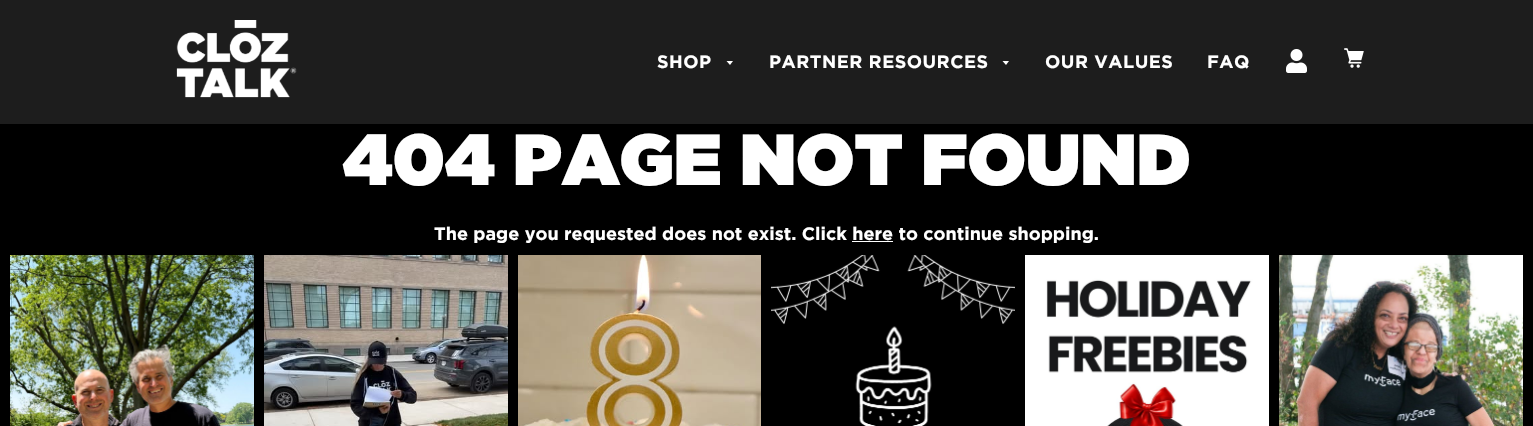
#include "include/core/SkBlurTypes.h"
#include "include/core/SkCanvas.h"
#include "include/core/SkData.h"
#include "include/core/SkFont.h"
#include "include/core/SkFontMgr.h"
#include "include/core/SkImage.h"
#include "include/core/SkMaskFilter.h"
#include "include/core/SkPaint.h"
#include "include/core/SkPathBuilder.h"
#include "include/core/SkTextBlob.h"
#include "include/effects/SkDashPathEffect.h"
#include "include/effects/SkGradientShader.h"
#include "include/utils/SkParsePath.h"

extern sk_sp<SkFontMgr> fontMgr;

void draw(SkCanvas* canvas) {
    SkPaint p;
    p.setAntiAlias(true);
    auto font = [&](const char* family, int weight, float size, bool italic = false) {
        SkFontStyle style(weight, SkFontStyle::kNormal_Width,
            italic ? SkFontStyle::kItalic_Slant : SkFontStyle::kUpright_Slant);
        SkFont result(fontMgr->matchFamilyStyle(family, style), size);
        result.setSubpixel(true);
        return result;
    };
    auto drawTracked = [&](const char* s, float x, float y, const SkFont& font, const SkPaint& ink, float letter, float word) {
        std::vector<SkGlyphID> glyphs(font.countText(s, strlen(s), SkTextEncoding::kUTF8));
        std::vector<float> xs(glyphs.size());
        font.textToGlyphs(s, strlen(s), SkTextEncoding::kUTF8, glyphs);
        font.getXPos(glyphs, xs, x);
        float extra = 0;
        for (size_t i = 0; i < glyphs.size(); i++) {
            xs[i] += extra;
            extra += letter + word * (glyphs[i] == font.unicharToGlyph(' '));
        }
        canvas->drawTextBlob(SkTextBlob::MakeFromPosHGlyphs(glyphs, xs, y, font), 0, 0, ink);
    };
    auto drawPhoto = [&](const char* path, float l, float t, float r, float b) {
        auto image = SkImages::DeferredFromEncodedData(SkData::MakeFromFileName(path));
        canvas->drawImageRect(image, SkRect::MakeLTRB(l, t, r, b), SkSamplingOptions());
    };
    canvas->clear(0xFF000000);
    p.setColor(0xFF1D1D1D);
    canvas->drawRect(SkRect::MakeLTRB(0, 0, 1533, 124), p);
    drawPhoto("media/1.png", 176, 20, 297, 98);
    auto font1 = font("Gotham", 700, 18);
    p.setColor(0xFFFFFFFF);
    drawTracked("SHOP", 657, 68, font1, p, 0.5f, 0);
    canvas->drawPath(SkPathBuilder().moveTo(726.5f, 61).lineTo(730, 65).lineTo(733, 61).close().detach(), p);
    drawTracked("PARTNER RESOURCES", 769, 68, font1, p, 0.5f, 0);
    canvas->drawPath(SkPathBuilder().moveTo(1002.5f, 61).lineTo(1006, 65).lineTo(1009, 61).close().detach(), p);
    drawTracked("OUR VALUES", 1045, 68, font1, p, 0.5f, 0);
    drawTracked("FAQ", 1207, 68, font1, p, 0.5f, 0);
    drawPhoto("media/2.png", 1286, 49, 1307, 73);
    drawPhoto("media/3.png", 1344, 48, 1364, 68);
    auto font2 = font("Gotham", 500, 72);
    canvas->drawString("404 PAGE NOT FOUND", 343, 185, font2, p);
    canvas->drawString("The page you requested does not exist. Click here to continue shopping.", 434, 240, font1, p);
    canvas->drawRect(SkRect::MakeLTRB(852, 241, 893, 242), p);
    drawPhoto("media/4.png", 10, 255, 254, 426);
    drawPhoto("media/5.png", 264, 255, 508, 426);
    drawPhoto("media/6.png", 518, 255, 761, 426);
    drawPhoto("media/7.png", 771, 255, 1015, 426);
    drawPhoto("media/8.png", 1025, 255, 1269, 426);
    drawPhoto("media/9.png", 1279, 255, 1523, 426);
}
